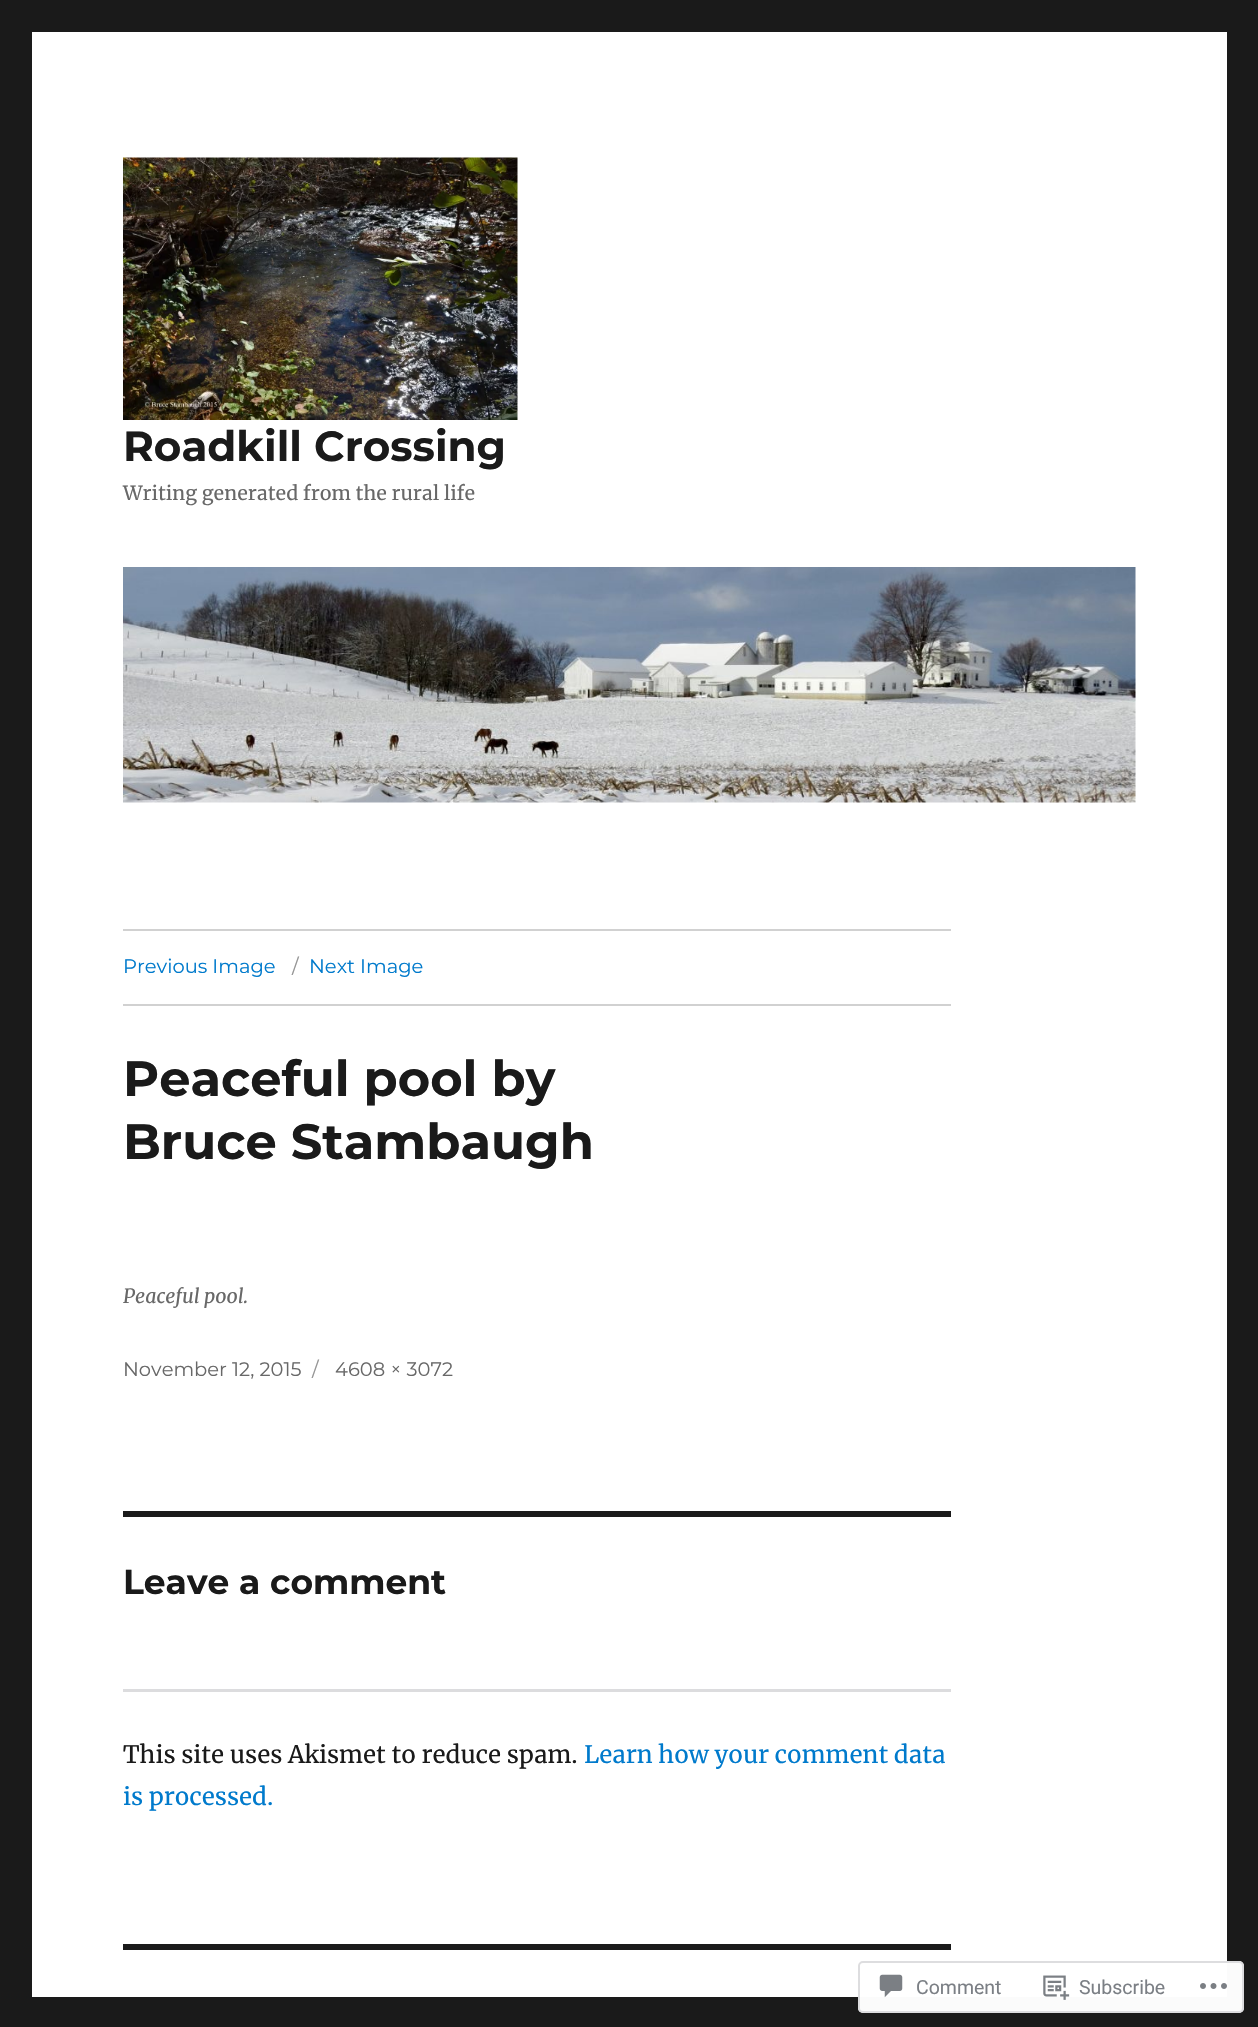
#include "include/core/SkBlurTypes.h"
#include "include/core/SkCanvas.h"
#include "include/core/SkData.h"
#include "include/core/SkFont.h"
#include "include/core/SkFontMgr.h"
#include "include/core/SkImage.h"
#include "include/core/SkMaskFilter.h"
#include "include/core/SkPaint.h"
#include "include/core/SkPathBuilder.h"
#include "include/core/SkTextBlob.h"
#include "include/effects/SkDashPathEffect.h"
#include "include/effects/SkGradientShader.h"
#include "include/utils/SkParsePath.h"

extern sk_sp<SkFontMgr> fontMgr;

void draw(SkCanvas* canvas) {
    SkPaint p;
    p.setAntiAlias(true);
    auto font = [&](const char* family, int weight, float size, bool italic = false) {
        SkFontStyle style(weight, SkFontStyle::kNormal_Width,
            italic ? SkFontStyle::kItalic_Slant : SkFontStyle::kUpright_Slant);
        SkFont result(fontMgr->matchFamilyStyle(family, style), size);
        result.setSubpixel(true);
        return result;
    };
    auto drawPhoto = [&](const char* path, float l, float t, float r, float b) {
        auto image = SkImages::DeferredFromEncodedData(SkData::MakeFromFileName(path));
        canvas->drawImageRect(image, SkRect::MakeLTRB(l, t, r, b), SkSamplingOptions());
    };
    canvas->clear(0xFF1A1A1A);
    p.setColor(0xFFFFFFFF);
    canvas->drawRect(SkRect::MakeLTRB(32, 32, 1227, 1997), p);
    drawPhoto("media/1.png", 123, 157, 518, 420);
    auto font1 = font("Montserrat", 100, 42);
    p.setColor(0xFF1A1A1A);
    canvas->drawString("Roadkill Crossing", 123, 461, font1, p);
    auto font2 = font("Merriweather", 400, 19.5f);
    p.setColor(0xFF686868);
    canvas->drawString("Writing generated from the rural life", 123, 500, font2, p);
    drawPhoto("media/2.png", 123, 567, 1136, 803);
    p.setColor(0xFFD1D1D1);
    canvas->drawRect(SkRect::MakeLTRB(123, 929, 951, 931), p);
    canvas->drawRect(SkRect::MakeLTRB(123, 1004, 951, 1006), p);
    auto font3 = font("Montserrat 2", 100, 19.5f);
    p.setColor(0xFF007ACC);
    canvas->drawString("Previous Image", 123, 973, font3, p);
    p.setColor(0xFF959595);
    canvas->drawString("/", 292, 973, font3, p);
    p.setColor(0xFF007ACC);
    canvas->drawString("Next Image", 309, 973, font3, p);
    auto font4 = font("Montserrat", 100, 49.5f);
    p.setColor(0xFF1A1A1A);
    canvas->drawString("Peaceful pool by", 123, 1096, font4, p);
    canvas->drawString("Bruce Stambaugh", 123, 1159, font4, p);
    auto font5 = font("Merriweather", 400, 19.5f, true);
    p.setColor(0xFF686868);
    canvas->drawString("Peaceful pool.", 123, 1303, font5, p);
    canvas->drawString("November 12, 2015", 123, 1376, font3, p);
    p.setColor(0xFF959595);
    canvas->drawString("/", 312, 1376, font3, p);
    p.setColor(0xFF686868);
    canvas->drawString("4608 × 3072", 335, 1376, font3, p);
    p.setColor(0xFF1A1A1A);
    canvas->drawRect(SkRect::MakeLTRB(123, 1511, 951, 1517), p);
    auto font6 = font("Montserrat", 100, 34.5f);
    canvas->drawString("Leave a comment", 123, 1594, font6, p);
    p.setColor(0xFFDCDCDE);
    canvas->drawRect(SkRect::MakeLTRB(123, 1689, 951, 1692), p);
    auto font7 = font("Merriweather", 400, 24);
    p.setColor(0xFF1A1A1A);
    canvas->drawString("This site uses Akismet to reduce spam.", 123, 1763, font7, p);
    p.setColor(0xFF007ACC);
    canvas->drawString("Learn how your comment data", 584, 1763, font7, p);
    canvas->drawString("is processed.", 123, 1805, font7, p);
    p.setColor(0xFF1A1A1A);
    canvas->drawRect(SkRect::MakeLTRB(123, 1944, 951, 1950), p);
    p.setColor(0xFAFFFFFF);
    canvas->drawRoundRect(SkRect::MakeLTRB(858, 1961, 1244, 2013), 5, 5, p);
    p.setStyle(SkPaint::kStroke_Style);
    p.setStrokeWidth(2);
    p.setColor(0xFADCDCDE);
    canvas->drawRoundRect(SkRect::MakeLTRB(859, 1962, 1243, 2012), 4, 4, p);
    drawPhoto("media/3.png", 879, 1974, 903, 1998);
    auto font8 = font("Roboto", 400, 19.5f);
    p.setStyle(SkPaint::kFill_Style);
    p.setColor(0xFF7B7F85);
    canvas->drawString("Comment", 916, 1994, font8, p);
    drawPhoto("media/4.png", 1043, 1975, 1070, 2000);
    canvas->drawString("Subscribe", 1079, 1994, font8, p);
    drawPhoto("media/5.png", 1200, 1983, 1227, 1989);
}
